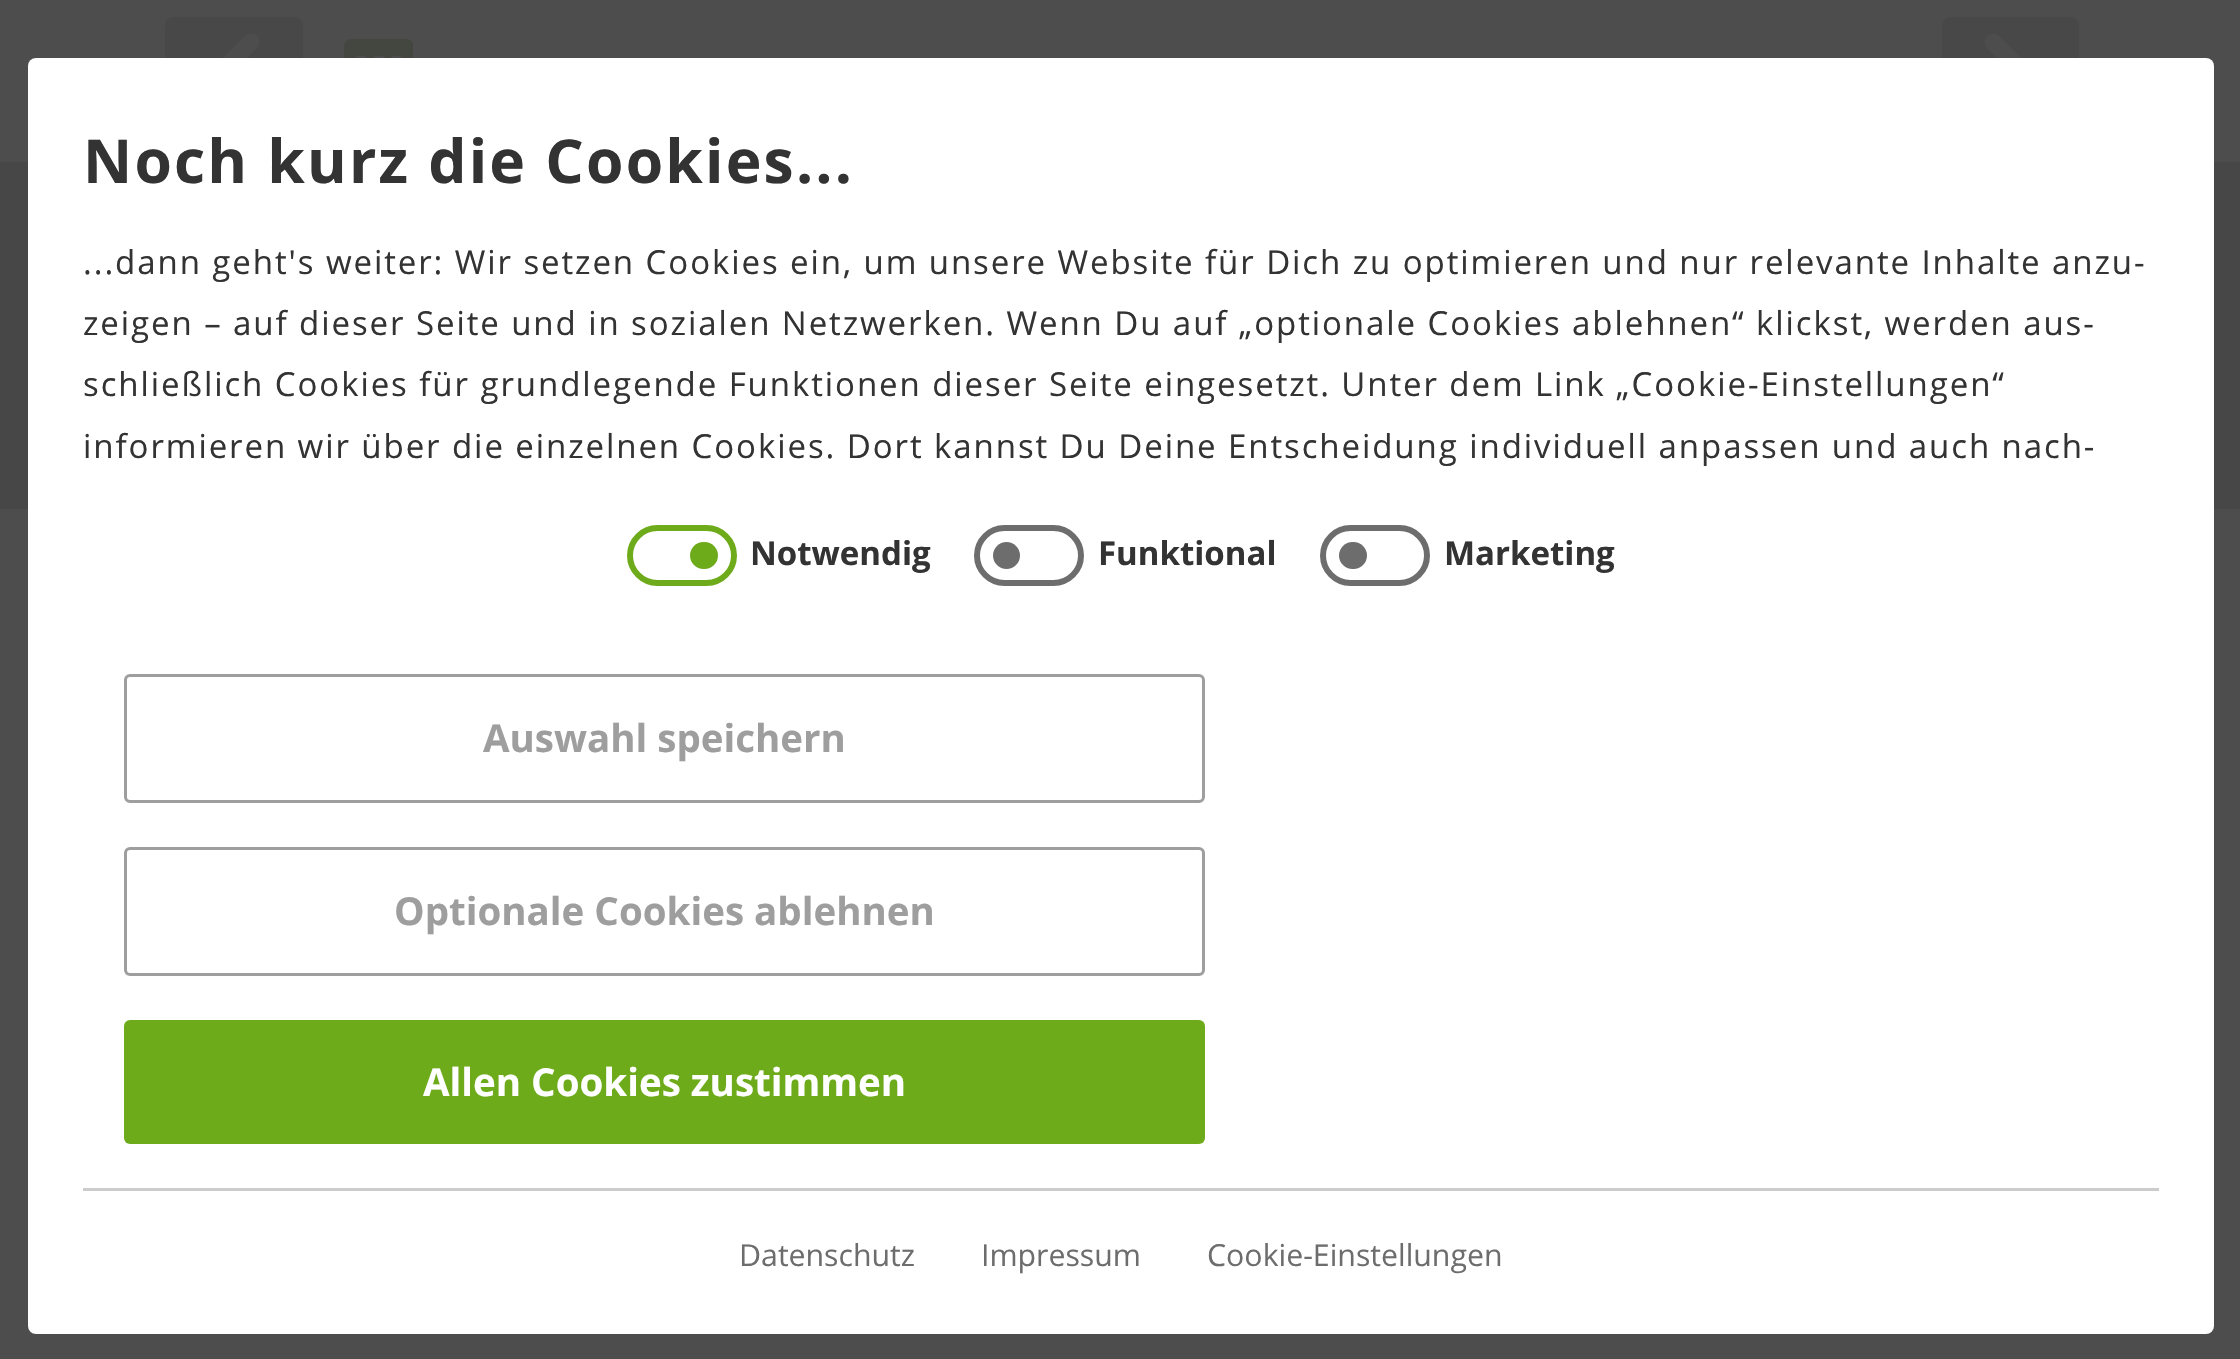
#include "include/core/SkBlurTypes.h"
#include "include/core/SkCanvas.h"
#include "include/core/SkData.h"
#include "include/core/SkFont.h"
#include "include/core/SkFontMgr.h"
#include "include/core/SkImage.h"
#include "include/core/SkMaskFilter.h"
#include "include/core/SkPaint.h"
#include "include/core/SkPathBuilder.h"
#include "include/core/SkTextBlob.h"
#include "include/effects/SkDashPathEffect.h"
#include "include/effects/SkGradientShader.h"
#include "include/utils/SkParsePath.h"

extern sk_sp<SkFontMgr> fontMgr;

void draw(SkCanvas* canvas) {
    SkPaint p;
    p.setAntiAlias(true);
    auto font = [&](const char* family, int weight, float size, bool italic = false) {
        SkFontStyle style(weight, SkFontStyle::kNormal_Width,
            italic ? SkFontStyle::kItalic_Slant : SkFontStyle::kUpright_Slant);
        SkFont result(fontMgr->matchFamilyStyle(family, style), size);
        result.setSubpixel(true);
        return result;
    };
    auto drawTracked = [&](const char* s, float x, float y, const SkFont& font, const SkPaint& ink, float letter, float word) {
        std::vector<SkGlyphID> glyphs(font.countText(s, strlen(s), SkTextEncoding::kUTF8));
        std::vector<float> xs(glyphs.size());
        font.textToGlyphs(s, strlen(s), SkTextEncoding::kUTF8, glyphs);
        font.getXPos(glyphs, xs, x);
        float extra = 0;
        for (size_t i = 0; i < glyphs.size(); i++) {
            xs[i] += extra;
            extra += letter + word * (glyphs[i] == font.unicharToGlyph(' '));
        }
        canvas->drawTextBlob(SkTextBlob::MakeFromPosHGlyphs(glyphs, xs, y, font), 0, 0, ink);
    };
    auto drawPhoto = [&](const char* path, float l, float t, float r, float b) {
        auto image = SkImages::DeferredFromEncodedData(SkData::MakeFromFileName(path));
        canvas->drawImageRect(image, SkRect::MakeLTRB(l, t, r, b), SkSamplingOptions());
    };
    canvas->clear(0xFF474747);
    p.setColor(0xFF4D4D4D);
    canvas->drawRect(SkRect::MakeLTRB(0, 0, 2240, 162), p);
    p.setColor(0xFF484848);
    canvas->drawRoundRect(SkRect::MakeLTRB(165, 17, 303, 154), 8, 8, p);
    p.setColor(0xFF4D4D4D);
    canvas->drawPath(SkPathBuilder().moveTo(202, 79).cubicTo(199, 83, 199, 88, 202, 91).lineTo(245, 134).cubicTo(248, 138, 254, 138, 257, 134).cubicTo(260, 131, 260, 126, 257, 122).lineTo(220, 85).lineTo(257, 48).cubicTo(260, 45, 260, 40, 257, 36).cubicTo(254, 33, 248, 33, 245, 36).close().detach(), p);
    drawPhoto("media/1.png", 344, 39, 413, 58);
    p.setColor(0xFF484848);
    canvas->drawRoundRect(SkRect::MakeLTRB(1942, 17, 2079, 154), 8, 8, p);
    p.setColor(0xFF4D4D4D);
    canvas->drawPath(SkPathBuilder().moveTo(2042, 79).cubicTo(2045, 83, 2045, 88, 2042, 91).lineTo(1999, 134).cubicTo(1996, 138, 1990, 138, 1987, 134).cubicTo(1984, 131, 1984, 126, 1987, 122).lineTo(2024, 85).lineTo(1987, 48).cubicTo(1984, 45, 1984, 40, 1987, 36).cubicTo(1990, 33, 1996, 33, 1999, 36).close().detach(), p);
    canvas->drawRect(SkRect::MakeLTRB(0, 509, 2240, 1359), p);
    p.setColor(0xFFFFFFFF);
    canvas->drawRoundRect(SkRect::MakeLTRB(28, 58, 2214, 1334), 8, 8, p);
    auto font1 = font("Open Sans", 700, 60.5f);
    p.setColor(0xFF333333);
    drawTracked("Noch kurz die Cookies...", 83, 183, font1, p, 2.2f, 0);
    auto font2 = font("Open Sans", 400, 33);
    {
        const struct { const char* s; float x, y; } items[] = {
            {"...dann geht's weiter: Wir setzen Cookies ein, um unsere Website für Dich zu optimieren und nur relevante Inhalte anzu-", 83, 274},
            {"zeigen – auf dieser Seite und in sozialen Netzwerken. Wenn Du auf „optionale Cookies ablehnen“ klickst, werden aus-", 83, 335},
            {"schließlich Cookies für grundlegende Funktionen dieser Seite eingesetzt. Unter dem Link „Cookie-Einstellungen“", 83, 396},
            {"informieren wir über die einzelnen Cookies. Dort kannst Du Deine Entscheidung individuell anpassen und auch nach-", 83, 458},
        };
        for (auto [s, x, y] : items) {
            drawTracked(s, x, y, font2, p, 1.92f, 0);
        }
    }
    p.setStyle(SkPaint::kStroke_Style);
    p.setStrokeWidth(6);
    p.setColor(0xFF6EAB1B);
    canvas->drawRoundRect(SkRect::MakeLTRB(630, 528, 734, 583), 27.5f, 27.5f, p);
    p.setStyle(SkPaint::kFill_Style);
    canvas->drawRoundRect(SkRect::MakeLTRB(690, 542, 718, 569), 13.5f, 13.5f, p);
    auto font3 = font("Open Sans", 700, 33);
    p.setColor(0xFF333333);
    canvas->drawString("Notwendig", 750, 565, font3, p);
    p.setStyle(SkPaint::kStroke_Style);
    p.setColor(0xFF6D6D6D);
    canvas->drawRoundRect(SkRect::MakeLTRB(977, 528, 1081, 583), 27.5f, 27.5f, p);
    p.setStyle(SkPaint::kFill_Style);
    canvas->drawCircle(1006.5f, 555.5f, 13.5f, p);
    p.setColor(0xFF333333);
    canvas->drawString("Funktional", 1098, 565, font3, p);
    p.setStyle(SkPaint::kStroke_Style);
    p.setColor(0xFF6D6D6D);
    canvas->drawRoundRect(SkRect::MakeLTRB(1323, 528, 1427, 583), 27.5f, 27.5f, p);
    p.setStyle(SkPaint::kFill_Style);
    canvas->drawRoundRect(SkRect::MakeLTRB(1339, 542, 1367, 569), 13.5f, 13.5f, p);
    p.setColor(0xFF333333);
    canvas->drawString("Marketing", 1444, 565, font3, p);
    p.setStyle(SkPaint::kStroke_Style);
    p.setStrokeWidth(3);
    p.setColor(0xFF9E9E9E);
    canvas->drawRoundRect(SkRect::MakeLTRB(125.5f, 675.5f, 1203.5f, 801.5f), 4.5f, 4.5f, p);
    auto font4 = font("Open Sans", 700, 38.5f);
    p.setStyle(SkPaint::kFill_Style);
    canvas->drawString("Auswahl speichern", 483, 752, font4, p);
    p.setStyle(SkPaint::kStroke_Style);
    canvas->drawRoundRect(SkRect::MakeLTRB(125.5f, 848.5f, 1203.5f, 974.5f), 4.5f, 4.5f, p);
    p.setStyle(SkPaint::kFill_Style);
    canvas->drawString("Optionale Cookies ablehnen", 394, 925, font4, p);
    p.setColor(0xFF6EAB1B);
    canvas->drawRoundRect(SkRect::MakeLTRB(124, 1020, 1205, 1144), 6, 6, p);
    p.setColor(0xFFFFFFFF);
    canvas->drawString("Allen Cookies zustimmen", 423, 1096, font4, p);
    p.setColor(0xFFCCCCCC);
    canvas->drawRect(SkRect::MakeLTRB(83, 1188, 2159, 1191), p);
    auto font5 = font("Open Sans", 400, 30.25f);
    p.setColor(0xFF6D6D6D);
    {
        const struct { const char* s; float x, y; } items[] = {
            {"Datenschutz", 739, 1266},
            {"Impressum", 981, 1266},
            {"Cookie-Einstellungen", 1207, 1266},
        };
        for (auto [s, x, y] : items) {
            canvas->drawString(s, x, y, font5, p);
        }
    }
}
